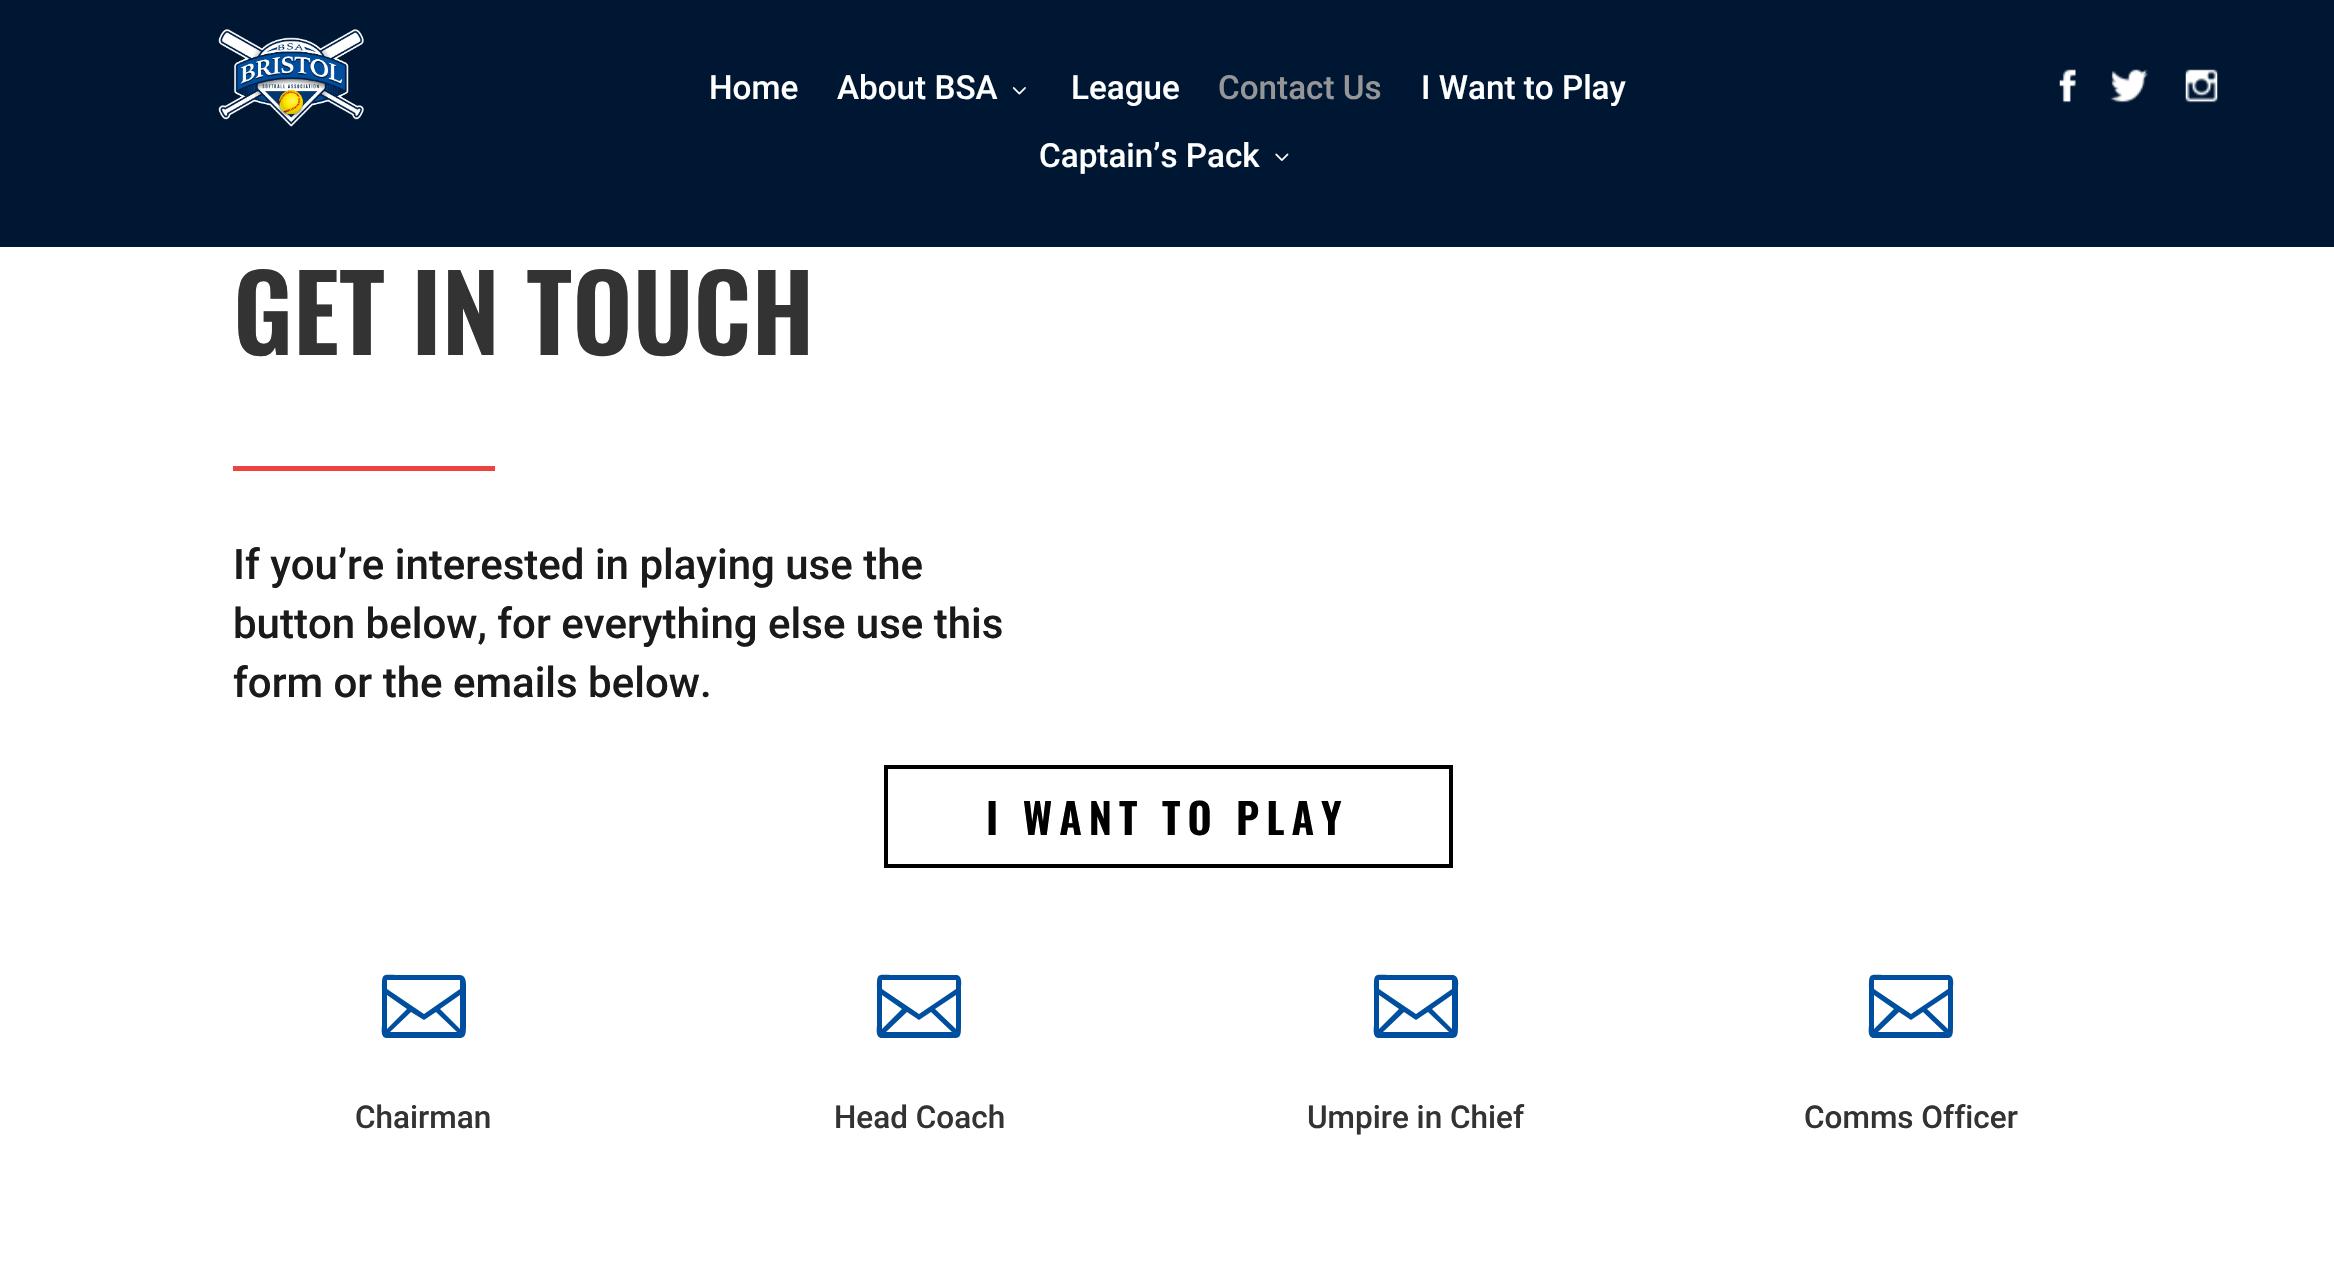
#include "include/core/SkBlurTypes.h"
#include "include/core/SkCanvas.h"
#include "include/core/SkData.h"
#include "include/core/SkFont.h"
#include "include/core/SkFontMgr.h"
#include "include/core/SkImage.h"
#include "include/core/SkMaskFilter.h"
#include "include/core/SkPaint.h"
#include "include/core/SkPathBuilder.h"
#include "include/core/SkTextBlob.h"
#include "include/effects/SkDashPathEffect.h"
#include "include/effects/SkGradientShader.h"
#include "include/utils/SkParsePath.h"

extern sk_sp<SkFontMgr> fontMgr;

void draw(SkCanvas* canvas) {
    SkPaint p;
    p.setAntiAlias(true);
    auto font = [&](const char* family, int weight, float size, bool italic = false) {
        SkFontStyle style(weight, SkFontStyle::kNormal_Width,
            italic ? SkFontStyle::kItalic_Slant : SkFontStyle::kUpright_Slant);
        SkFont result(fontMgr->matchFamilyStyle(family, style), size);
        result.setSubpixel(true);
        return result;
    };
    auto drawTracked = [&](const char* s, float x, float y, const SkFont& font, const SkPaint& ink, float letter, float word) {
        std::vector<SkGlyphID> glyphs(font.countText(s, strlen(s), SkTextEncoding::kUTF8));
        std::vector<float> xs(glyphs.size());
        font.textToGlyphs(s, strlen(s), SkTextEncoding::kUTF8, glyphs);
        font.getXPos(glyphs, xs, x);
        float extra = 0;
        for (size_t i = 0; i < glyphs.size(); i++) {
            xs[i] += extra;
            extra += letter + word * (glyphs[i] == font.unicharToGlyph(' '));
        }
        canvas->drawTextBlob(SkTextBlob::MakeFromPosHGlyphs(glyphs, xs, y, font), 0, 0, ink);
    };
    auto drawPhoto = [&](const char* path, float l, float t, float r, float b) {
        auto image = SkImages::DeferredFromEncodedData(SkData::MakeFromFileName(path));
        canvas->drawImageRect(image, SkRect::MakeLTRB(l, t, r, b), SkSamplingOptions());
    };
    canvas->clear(0xFFFFFFFF);
    p.setColor(0xFF001733);
    canvas->drawRect(SkRect::MakeLTRB(0, 0, 2334, 247), p);
    drawPhoto("media/1.png", 218, 29, 364, 127);
    auto font1 = font("Roboto", 500, 33.25f);
    p.setColor(0xFFFFFFFF);
    canvas->drawString("Home", 709, 99, font1, p);
    canvas->drawString("About BSA", 837, 99, font1, p);
    drawPhoto("media/2.png", 1012, 87, 1026, 95);
    canvas->drawString("League", 1071, 99, font1, p);
    p.setColor(0xFF969696);
    canvas->drawString("Contact Us", 1218, 99, font1, p);
    p.setColor(0xFFFFFFFF);
    canvas->drawString("I Want to Play", 1421, 99, font1, p);
    canvas->drawString("Captain’s Pack", 1039, 167, font1, p);
    drawPhoto("media/3.png", 1275, 153, 1289, 161);
    drawPhoto("media/4.png", 2059, 69, 2076, 103);
    drawPhoto("media/5.png", 2110, 69, 2148, 103);
    drawPhoto("media/6.png", 2185, 69, 2218, 103);
    auto font2 = font("Oswald", 600, 105);
    p.setColor(0xFF333333);
    canvas->drawString("GET IN TOUCH", 233, 355, font2, p);
    p.setColor(0xFFED4441);
    canvas->drawRect(SkRect::MakeLTRB(233, 466, 495, 471), p);
    auto font3 = font("Roboto", 500, 42);
    p.setColor(0xFF1A1A1A);
    {
        const struct { const char* s; float x, y; } items[] = {
            {"If you’re interested in playing use the", 233, 579},
            {"button below, for everything else use this", 233, 638},
            {"form or the emails below.", 233, 697},
        };
        for (auto [s, x, y] : items) {
            canvas->drawString(s, x, y, font3, p);
        }
    }
    p.setStyle(SkPaint::kStroke_Style);
    p.setStrokeWidth(4);
    p.setColor(0xFF000000);
    canvas->drawRect(SkRect::MakeLTRB(886, 767, 1451, 866), p);
    auto font4 = font("Oswald", 600, 42);
    p.setStyle(SkPaint::kFill_Style);
    drawTracked("I WANT TO PLAY", 986, 835, font4, p, 7, 0);
    p.setColor(0xFF004F9F);
    canvas->drawPath(SkPathBuilder().moveTo(460, 975).lineTo(399, 975).cubicTo(382, 975, 382, 972, 382, 989).lineTo(382, 1024).cubicTo(382, 1028, 380, 1038, 387, 1038).lineTo(448, 1038).cubicTo(465, 1038, 466, 1040, 466, 1024).lineTo(466, 989).cubicTo(466, 985, 467, 975, 460, 975).close().moveTo(411, 1012).lineTo(424, 1020).lineTo(436, 1012).lineTo(457, 1032).lineTo(390, 1032).close().moveTo(387, 1029).lineTo(387, 995).lineTo(407, 1009).close().moveTo(440, 1009).lineTo(460, 995).lineTo(460, 1029).close().moveTo(460, 980).lineTo(460, 989).lineTo(424, 1014).lineTo(387, 989).lineTo(387, 980).close().detach(), p);
    auto font5 = font("Roboto", 500, 31.5f);
    p.setColor(0xFF333333);
    canvas->drawString("Chairman", 355, 1128, font5, p);
    p.setColor(0xFF004F9F);
    canvas->drawPath(SkPathBuilder().moveTo(956, 975).lineTo(894, 975).cubicTo(877, 975, 877, 972, 877, 989).lineTo(877, 1024).cubicTo(877, 1028, 875, 1038, 882, 1038).lineTo(943, 1038).cubicTo(961, 1038, 961, 1040, 961, 1024).lineTo(961, 989).cubicTo(961, 985, 963, 975, 956, 975).close().moveTo(907, 1012).lineTo(919, 1020).lineTo(931, 1012).lineTo(952, 1032).lineTo(886, 1032).close().moveTo(882, 1029).lineTo(882, 995).lineTo(902, 1009).close().moveTo(935, 1009).lineTo(956, 995).lineTo(956, 1029).close().moveTo(956, 980).lineTo(956, 989).lineTo(919, 1014).lineTo(882, 989).lineTo(882, 980).close().detach(), p);
    p.setColor(0xFF333333);
    canvas->drawString("Head Coach", 834, 1128, font5, p);
    p.setColor(0xFF004F9F);
    canvas->drawPath(SkPathBuilder().moveTo(1452, 975).lineTo(1391, 975).cubicTo(1374, 975, 1374, 972, 1374, 989).lineTo(1374, 1024).cubicTo(1374, 1028, 1372, 1038, 1379, 1038).lineTo(1440, 1038).cubicTo(1458, 1038, 1458, 1040, 1458, 1024).lineTo(1458, 989).cubicTo(1458, 985, 1460, 975, 1452, 975).close().moveTo(1404, 1012).lineTo(1416, 1020).lineTo(1428, 1012).lineTo(1449, 1032).lineTo(1383, 1032).close().moveTo(1379, 1029).lineTo(1379, 995).lineTo(1399, 1009).close().moveTo(1432, 1009).lineTo(1452, 995).lineTo(1452, 1029).close().moveTo(1452, 980).lineTo(1452, 989).lineTo(1416, 1014).lineTo(1379, 989).lineTo(1379, 980).close().detach(), p);
    p.setColor(0xFF333333);
    canvas->drawString("Umpire in Chief", 1307, 1128, font5, p);
    p.setColor(0xFF004F9F);
    canvas->drawPath(SkPathBuilder().moveTo(1948, 975).lineTo(1886, 975).cubicTo(1869, 975, 1869, 972, 1869, 989).lineTo(1869, 1024).cubicTo(1869, 1028, 1867, 1038, 1874, 1038).lineTo(1936, 1038).cubicTo(1953, 1038, 1953, 1040, 1953, 1024).lineTo(1953, 989).cubicTo(1953, 985, 1955, 975, 1948, 975).close().moveTo(1899, 1012).lineTo(1911, 1020).lineTo(1923, 1012).lineTo(1944, 1032).lineTo(1878, 1032).close().moveTo(1874, 1029).lineTo(1874, 995).lineTo(1894, 1009).close().moveTo(1927, 1009).lineTo(1948, 995).lineTo(1948, 1029).close().moveTo(1948, 980).lineTo(1948, 989).lineTo(1911, 1014).lineTo(1874, 989).lineTo(1874, 980).close().detach(), p);
    p.setColor(0xFF333333);
    canvas->drawString("Comms Officer", 1804, 1128, font5, p);
}
